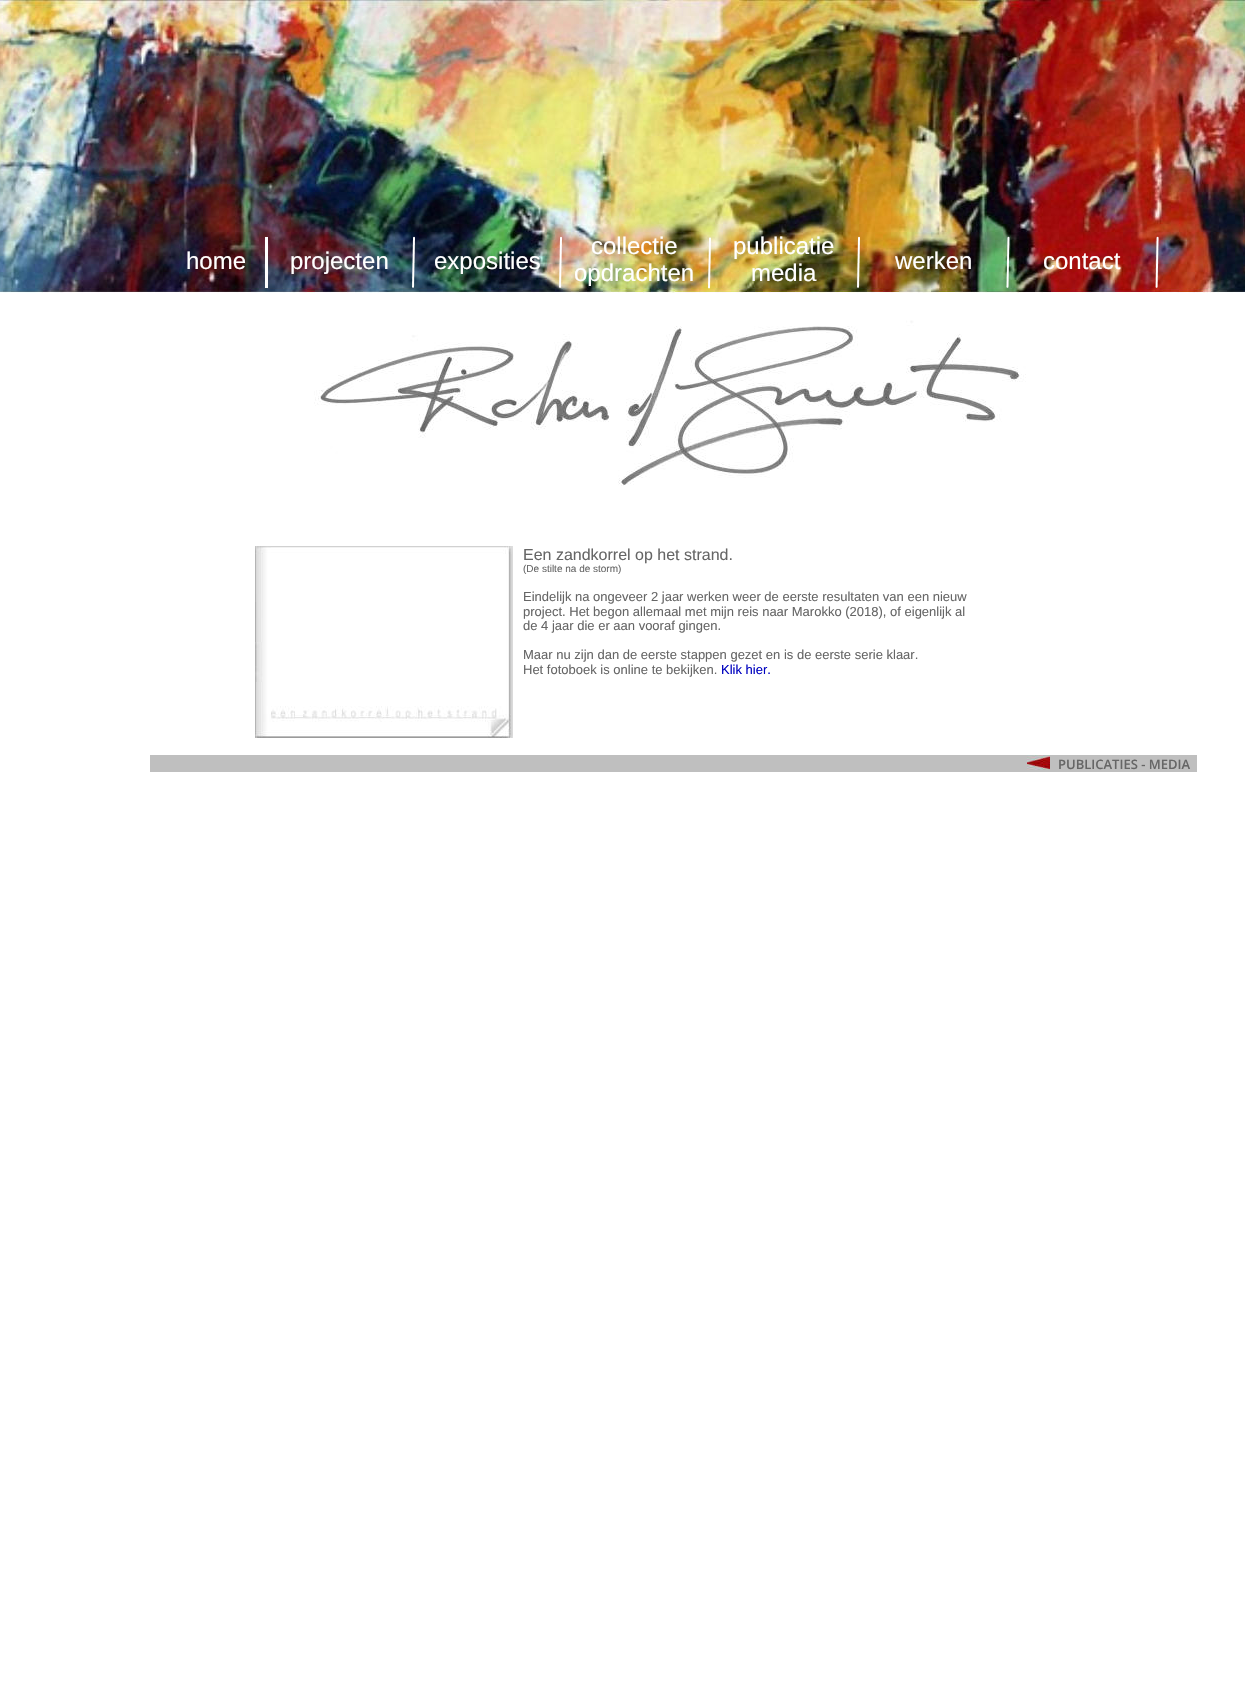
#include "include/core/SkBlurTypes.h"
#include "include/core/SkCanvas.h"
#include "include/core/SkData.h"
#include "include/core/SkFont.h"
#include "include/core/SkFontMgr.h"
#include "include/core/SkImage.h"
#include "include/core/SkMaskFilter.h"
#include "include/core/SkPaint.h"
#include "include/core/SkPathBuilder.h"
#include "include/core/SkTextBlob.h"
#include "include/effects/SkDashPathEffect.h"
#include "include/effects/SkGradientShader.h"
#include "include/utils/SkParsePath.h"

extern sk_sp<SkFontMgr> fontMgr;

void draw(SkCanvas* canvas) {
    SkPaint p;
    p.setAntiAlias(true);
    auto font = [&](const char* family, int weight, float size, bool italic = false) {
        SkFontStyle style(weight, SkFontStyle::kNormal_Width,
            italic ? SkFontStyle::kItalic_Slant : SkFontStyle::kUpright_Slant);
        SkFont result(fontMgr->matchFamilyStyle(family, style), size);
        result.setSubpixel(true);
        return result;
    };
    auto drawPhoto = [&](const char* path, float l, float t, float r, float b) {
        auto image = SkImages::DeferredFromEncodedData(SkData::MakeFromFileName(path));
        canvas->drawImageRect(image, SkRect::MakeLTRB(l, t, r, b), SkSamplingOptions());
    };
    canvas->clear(0xFFFFFFFF);
    drawPhoto("media/1.png", 0, 0, 1245, 293);
    drawPhoto("media/2.png", 314, 320, 1026, 486);
    auto font1 = font("Liberation Sans", 400, 24);
    p.setColor(0xFFFFFFFF);
    canvas->drawString("home", 186, 269, font1, p);
    canvas->drawRect(SkRect::MakeLTRB(265, 237, 268, 288), p);
    canvas->drawString("projecten", 290, 269, font1, p);
    drawPhoto("media/3.png", 412, 236, 415, 288);
    canvas->drawString("exposities", 434, 269, font1, p);
    drawPhoto("media/4.png", 559, 236, 562, 288);
    canvas->drawString("collectie", 591, 254, font1, p);
    canvas->drawString("opdrachten", 574, 281, font1, p);
    drawPhoto("media/5.png", 708, 237, 711, 289);
    canvas->drawString("publicatie", 733, 254, font1, p);
    canvas->drawString("media", 751, 281, font1, p);
    drawPhoto("media/6.png", 857, 236, 860, 288);
    canvas->drawString("werken", 895, 269, font1, p);
    drawPhoto("media/7.png", 1006, 236, 1010, 288);
    canvas->drawString("contact", 1043, 269, font1, p);
    drawPhoto("media/8.png", 1155, 236, 1159, 288);
    drawPhoto("media/9.png", 255, 546, 513, 738);
    auto font2 = font("Liberation Sans", 400, 16);
    p.setColor(0xFF666666);
    canvas->drawString("Een zandkorrel op het strand.", 523, 560, font2, p);
    auto font3 = font("Liberation Sans", 400, 10);
    canvas->drawString("(De stilte na de storm)", 523, 572, font3, p);
    auto font4 = font("Liberation Sans", 400, 13);
    {
        const struct { const char* s; float x, y; } items[] = {
            {"Eindelijk na ongeveer 2 jaar werken weer de eerste resultaten van een nieuw", 523, 601},
            {"project. Het begon allemaal met mijn reis naar Marokko (2018), of eigenlijk al", 523, 616},
            {"de 4 jaar die er aan vooraf gingen.", 523, 630},
            {"Maar nu zijn dan de eerste stappen gezet en is de eerste serie klaar.", 523, 659},
            {"Het fotoboek is online te bekijken.", 523, 674},
        };
        for (auto [s, x, y] : items) {
            canvas->drawString(s, x, y, font4, p);
        }
    }
    p.setColor(0xFF0002BF);
    canvas->drawString("Klik hier.", 721, 674, font4, p);
    p.setColor(0xFFBFBFBF);
    canvas->drawRect(SkRect::MakeLTRB(150, 755, 1197, 772), p);
    drawPhoto("media/10.png", 1027, 755, 1050, 770);
    auto font5 = font("Open Sans", 600, 13);
    p.setColor(0xFF666666);
    canvas->drawString("PUBLICATIES - MEDIA", 1058, 769, font5, p);
}
